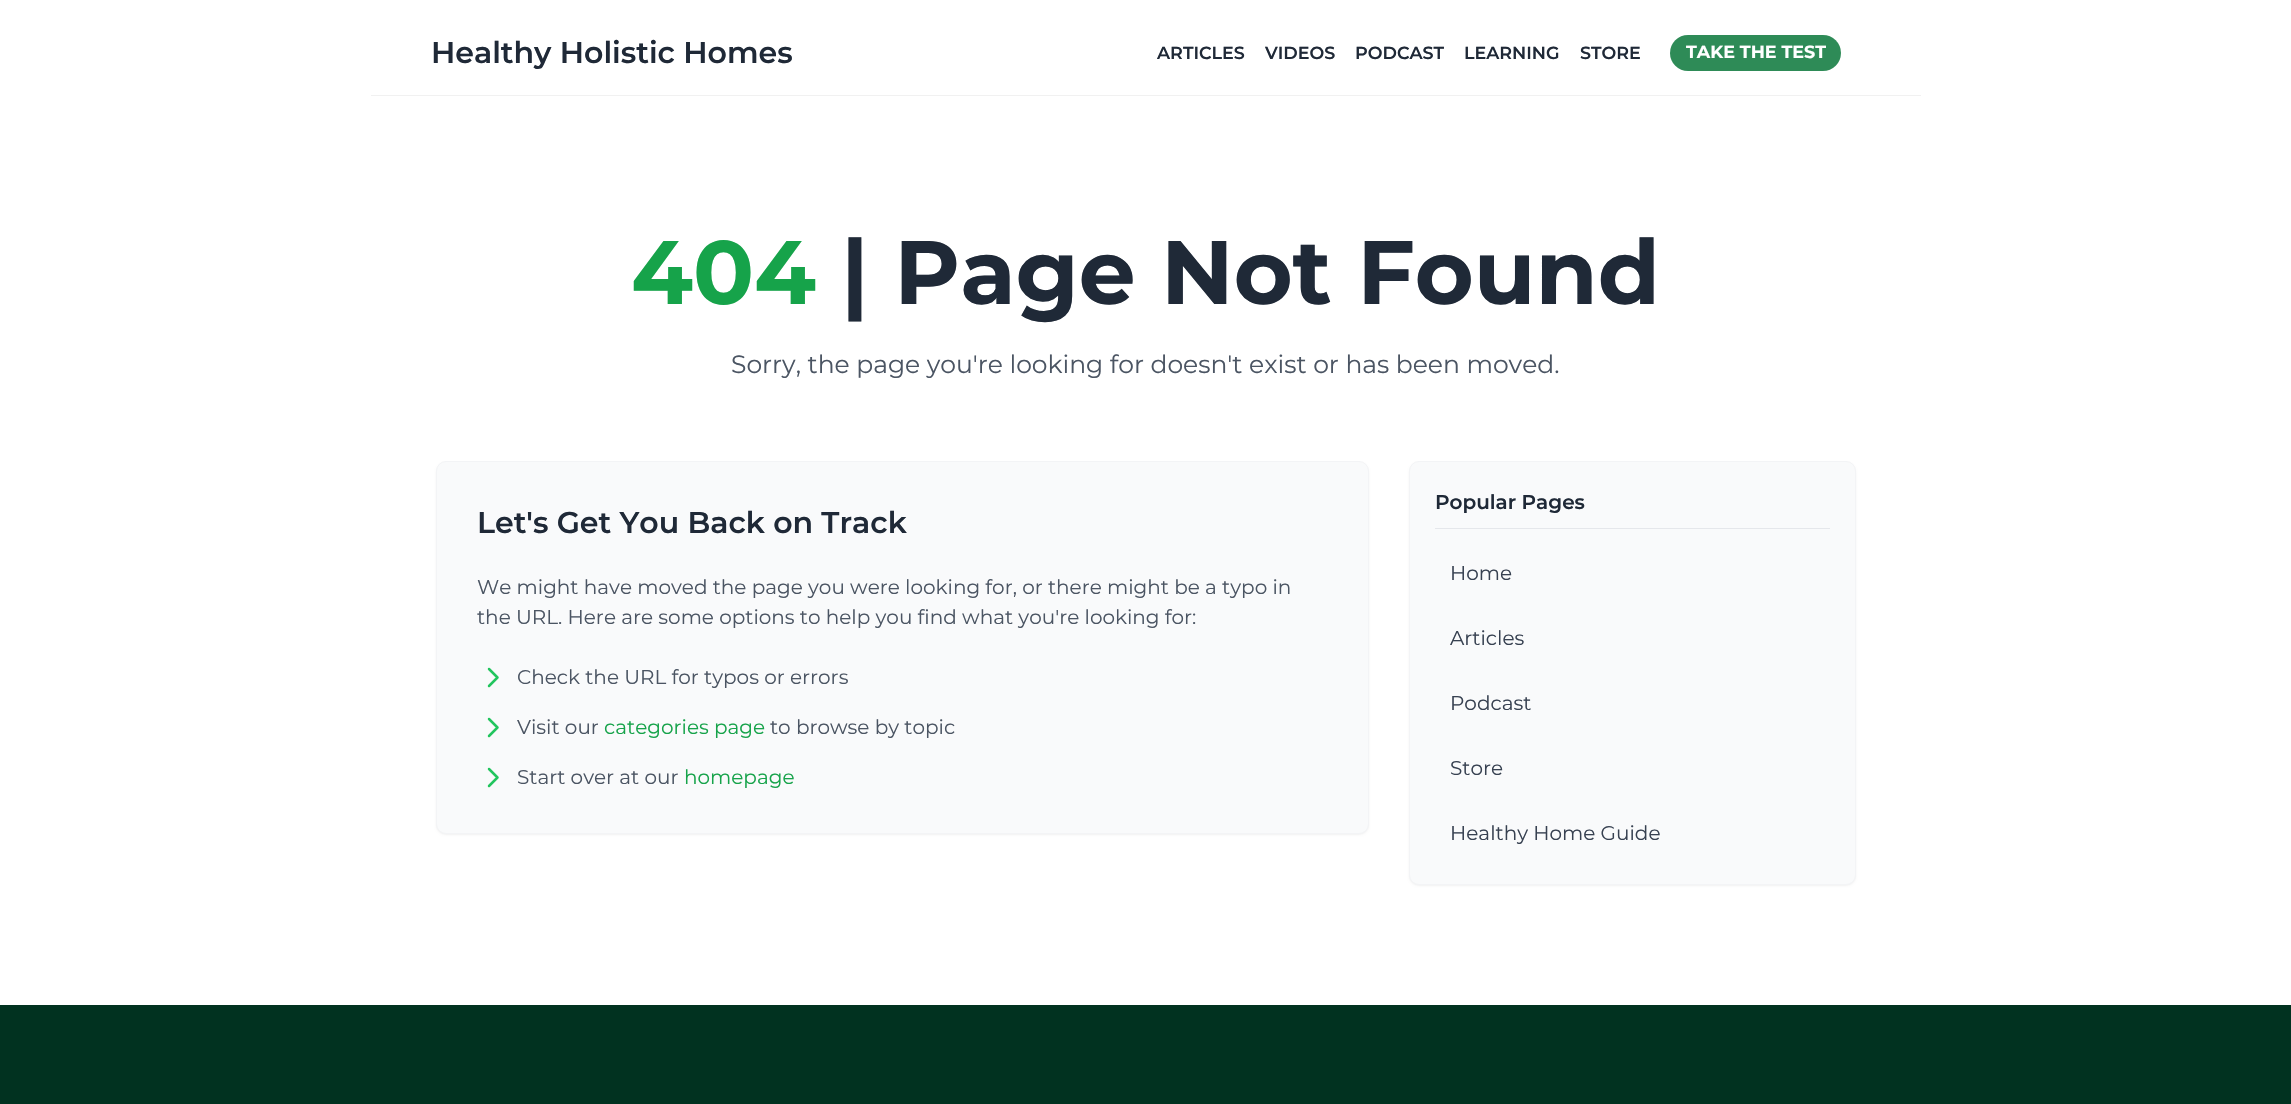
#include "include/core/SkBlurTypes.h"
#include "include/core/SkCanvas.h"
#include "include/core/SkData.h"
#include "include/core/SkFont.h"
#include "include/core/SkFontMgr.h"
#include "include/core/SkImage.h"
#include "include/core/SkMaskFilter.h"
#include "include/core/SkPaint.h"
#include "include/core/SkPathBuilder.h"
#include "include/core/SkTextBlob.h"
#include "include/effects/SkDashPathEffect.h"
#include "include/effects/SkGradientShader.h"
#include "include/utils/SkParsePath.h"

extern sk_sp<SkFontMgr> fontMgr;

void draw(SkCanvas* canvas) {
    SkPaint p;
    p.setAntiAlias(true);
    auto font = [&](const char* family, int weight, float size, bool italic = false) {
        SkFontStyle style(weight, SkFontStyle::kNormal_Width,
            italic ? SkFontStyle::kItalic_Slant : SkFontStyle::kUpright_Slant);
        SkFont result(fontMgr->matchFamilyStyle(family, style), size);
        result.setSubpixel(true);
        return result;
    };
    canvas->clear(0xFFFFFFFF);
    p.setColor(0xFFF1F1F1);
    canvas->drawRect(SkRect::MakeLTRB(371, 95, 1921, 96), p);
    auto font1 = font("Montserrat", 600, 30);
    p.setColor(0xFF1F2937);
    canvas->drawString("Healthy Holistic Homes", 431, 63, font1, p);
    auto font2 = font("Montserrat", 600, 17.5f);
    {
        const struct { const char* s; float x, y; } items[] = {
            {"ARTICLES", 1157, 59},
            {"VIDEOS", 1265, 59},
            {"PODCAST", 1355, 59},
            {"LEARNING", 1464, 59},
            {"STORE", 1580, 59},
        };
        for (auto [s, x, y] : items) {
            canvas->drawString(s, x, y, font2, p);
        }
    }
    p.setColor(0xFF2E8B57);
    canvas->drawRoundRect(SkRect::MakeLTRB(1670, 35, 1841, 71), 18, 18, p);
    auto font3 = font("Montserrat", 700, 17.5f);
    p.setColor(0xFFFFFFFF);
    canvas->drawString("TAKE THE TEST", 1686, 58, font3, p);
    auto font4 = font("Montserrat", 700, 90);
    p.setColor(0xFF16A34A);
    canvas->drawString("404", 631, 304, font4, p);
    p.setColor(0xFF1F2937);
    canvas->drawString("| Page Not Found", 841, 304, font4, p);
    auto font5 = font("Montserrat", 400, 25);
    p.setColor(0xFF4B5563);
    canvas->drawString("Sorry, the page you're looking for doesn't exist or has been moved.", 731, 373, font5, p);
    p.setColor(0x0D000000);
    p.setMaskFilter(SkMaskFilter::MakeBlur(kNormal_SkBlurStyle, 1));
    canvas->drawRoundRect(SkRect::MakeLTRB(436, 463, 1369, 835), 10, 10, p);
    p.setMaskFilter(nullptr);
    p.setColor(0xFFF9FAFB);
    canvas->drawRoundRect(SkRect::MakeLTRB(436.5f, 461.5f, 1368.5f, 833.5f), 9.5f, 9.5f, p);
    p.setStyle(SkPaint::kStroke_Style);
    p.setStrokeWidth(1);
    p.setColor(0xFFF3F4F6);
    canvas->drawRoundRect(SkRect::MakeLTRB(436.5f, 461.5f, 1368.5f, 833.5f), 9.5f, 9.5f, p);
    p.setStyle(SkPaint::kFill_Style);
    p.setColor(0xFF1F2937);
    canvas->drawString("Let's Get You Back on Track", 477, 533, font1, p);
    auto font6 = font("Montserrat", 400, 20);
    p.setColor(0xFF4B5563);
    canvas->drawString("We might have moved the page you were looking for, or there might be a typo in", 477, 594, font6, p);
    canvas->drawString("the URL. Here are some options to help you find what you're looking for:", 477, 624, font6, p);
    p.setStyle(SkPaint::kStroke_Style);
    p.setStrokeWidth(2.5f);
    p.setStrokeCap(SkPaint::kRound_Cap);
    p.setStrokeJoin(SkPaint::kRound_Join);
    p.setColor(0xFF22C55E);
    canvas->drawPath(SkPathBuilder().moveTo(489, 669).lineTo(497.5f, 677.5f).lineTo(489, 686).detach(), p);
    p.setStyle(SkPaint::kFill_Style);
    p.setColor(0xFF4B5563);
    canvas->drawString("Check the URL for typos or errors", 517, 684, font6, p);
    p.setStyle(SkPaint::kStroke_Style);
    p.setColor(0xFF22C55E);
    canvas->drawPath(SkPathBuilder().moveTo(489, 719).lineTo(497.5f, 727.5f).lineTo(489, 736).detach(), p);
    p.setStyle(SkPaint::kFill_Style);
    p.setColor(0xFF4B5563);
    canvas->drawString("Visit our", 517, 734, font6, p);
    p.setColor(0xFF16A34A);
    canvas->drawString("categories page", 604, 734, font6, p);
    p.setColor(0xFF4B5563);
    canvas->drawString("to browse by topic", 770, 734, font6, p);
    p.setStyle(SkPaint::kStroke_Style);
    p.setColor(0xFF22C55E);
    canvas->drawPath(SkPathBuilder().moveTo(489, 769).lineTo(497.5f, 777.5f).lineTo(489, 786).detach(), p);
    p.setStyle(SkPaint::kFill_Style);
    p.setColor(0xFF4B5563);
    canvas->drawString("Start over at our", 517, 784, font6, p);
    p.setColor(0xFF16A34A);
    canvas->drawString("homepage", 684, 784, font6, p);
    p.setColor(0x0D000000);
    p.setMaskFilter(SkMaskFilter::MakeBlur(kNormal_SkBlurStyle, 1));
    canvas->drawRoundRect(SkRect::MakeLTRB(1409, 463, 1856, 886), 10, 10, p);
    p.setMaskFilter(nullptr);
    p.setColor(0xFFF9FAFB);
    canvas->drawRoundRect(SkRect::MakeLTRB(1409.5f, 461.5f, 1855.5f, 884.5f), 9.5f, 9.5f, p);
    p.setStyle(SkPaint::kStroke_Style);
    p.setStrokeWidth(1);
    p.setStrokeCap(SkPaint::kButt_Cap);
    p.setStrokeJoin(SkPaint::kMiter_Join);
    p.setColor(0xFFF3F4F6);
    canvas->drawRoundRect(SkRect::MakeLTRB(1409.5f, 461.5f, 1855.5f, 884.5f), 9.5f, 9.5f, p);
    p.setStyle(SkPaint::kFill_Style);
    p.setColor(0xFFE5E7EB);
    canvas->drawRect(SkRect::MakeLTRB(1435, 528, 1830, 529), p);
    auto font7 = font("Montserrat", 600, 20);
    p.setColor(0xFF1F2937);
    canvas->drawString("Popular Pages", 1435, 509, font7, p);
    p.setColor(0xFF374151);
    {
        const struct { const char* s; float x, y; } items[] = {
            {"Home", 1450, 580},
            {"Articles", 1450, 645},
            {"Podcast", 1450, 710},
            {"Store", 1450, 775},
            {"Healthy Home Guide", 1450, 840},
        };
        for (auto [s, x, y] : items) {
            canvas->drawString(s, x, y, font6, p);
        }
    }
    p.setColor(0xFF013220);
    canvas->drawRect(SkRect::MakeLTRB(0, 1005, 2291, 1104), p);
}
